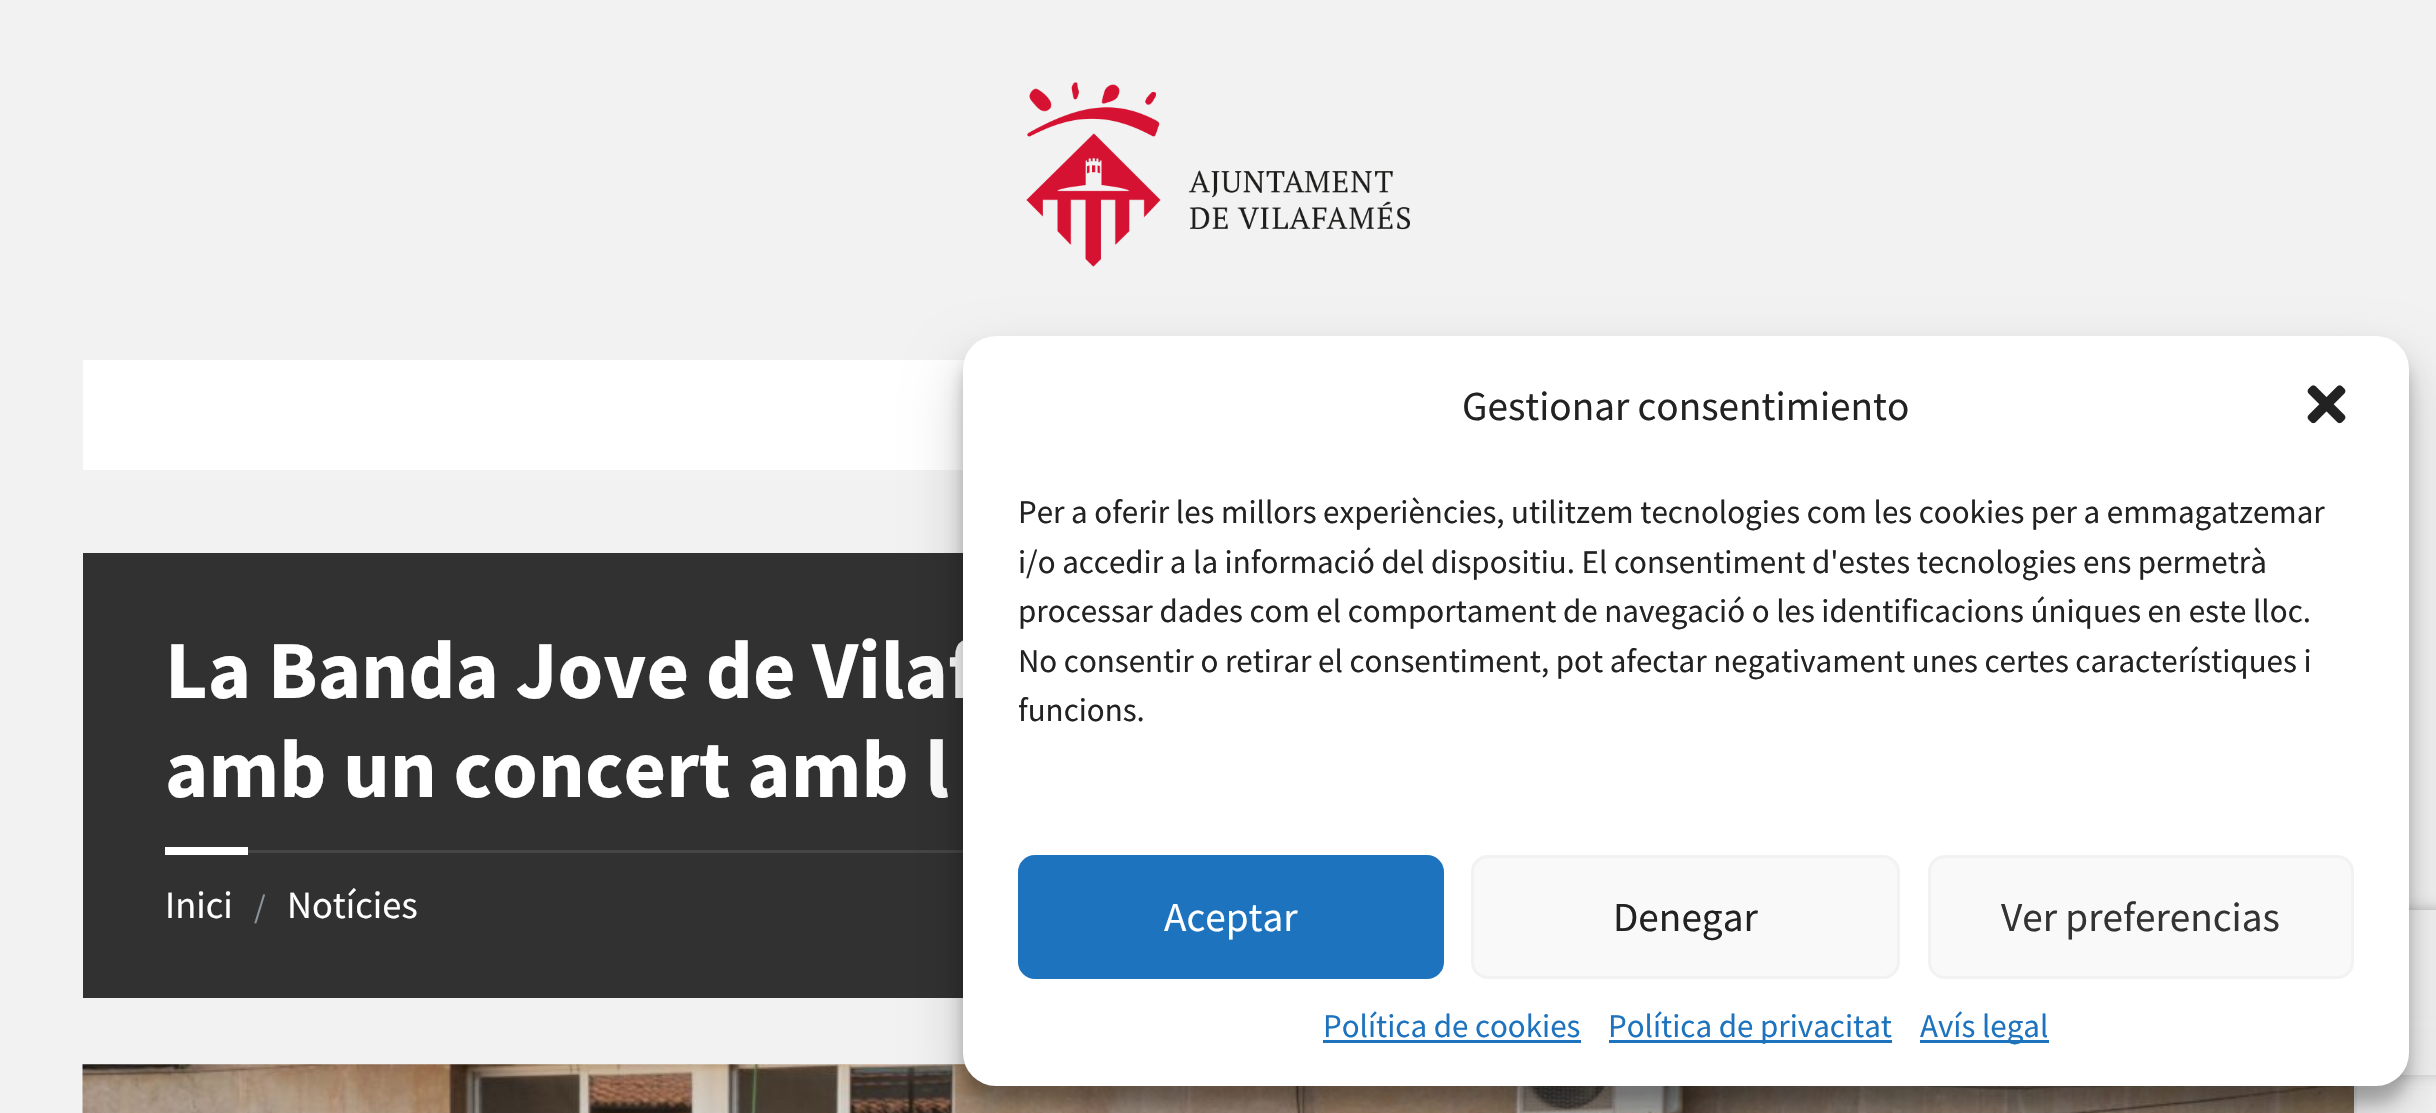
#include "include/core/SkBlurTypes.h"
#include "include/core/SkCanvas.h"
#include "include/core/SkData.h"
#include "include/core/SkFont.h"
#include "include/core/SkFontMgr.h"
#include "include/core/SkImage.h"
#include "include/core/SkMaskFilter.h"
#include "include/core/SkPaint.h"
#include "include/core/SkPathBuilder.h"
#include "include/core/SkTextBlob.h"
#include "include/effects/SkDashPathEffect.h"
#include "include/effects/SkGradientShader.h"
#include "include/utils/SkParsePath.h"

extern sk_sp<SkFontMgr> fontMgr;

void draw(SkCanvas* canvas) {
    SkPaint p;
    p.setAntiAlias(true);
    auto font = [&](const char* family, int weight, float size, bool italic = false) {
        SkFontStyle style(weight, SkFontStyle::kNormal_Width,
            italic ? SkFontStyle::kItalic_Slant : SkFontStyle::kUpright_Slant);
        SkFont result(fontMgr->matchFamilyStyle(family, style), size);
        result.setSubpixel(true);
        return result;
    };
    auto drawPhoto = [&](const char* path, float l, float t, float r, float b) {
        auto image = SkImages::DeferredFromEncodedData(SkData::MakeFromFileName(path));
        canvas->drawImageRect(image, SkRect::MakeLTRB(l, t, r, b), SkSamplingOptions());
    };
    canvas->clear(0xFFF2F2F2);
    drawPhoto("media/1.png", 1026, 82, 1410, 267);
    p.setColor(0xFFFFFFFF);
    canvas->drawRect(SkRect::MakeLTRB(83, 360, 965, 470), p);
    p.setColor(0xCC000000);
    canvas->drawRect(SkRect::MakeLTRB(83, 553, 963, 998), p);
    auto font1 = font("Source Sans Pro", 700, 82.5f);
    p.setColor(0xFFFFFFFF);
    canvas->drawString("La Banda Jove de Vilaf", 165, 698, font1, p);
    canvas->drawString("amb un concert amb l", 165, 797, font1, p);
    p.setColor(0xFF454545);
    canvas->drawRect(SkRect::MakeLTRB(248, 850, 963, 853), p);
    p.setColor(0xFFFFFFFF);
    canvas->drawRect(SkRect::MakeLTRB(165, 847, 248, 855), p);
    auto font2 = font("Source Sans Pro", 400, 38.5f);
    canvas->drawString("Inici", 165, 918, font2, p);
    auto font3 = font("Source Sans Pro", 400, 33);
    p.setColor(0xFF8A949B);
    canvas->drawString("/", 254, 918, font3, p);
    p.setColor(0xFFFFFFFF);
    canvas->drawString("Notícies", 287, 918, font2, p);
    canvas->save();
    canvas->clipPath(SkPathBuilder(SkPathFillType::kEvenOdd).moveTo(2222, 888).lineTo(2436, 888).lineTo(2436, 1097).lineTo(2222, 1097).close().moveTo(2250, 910).lineTo(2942, 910).cubicTo(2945.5f, 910, 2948, 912.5f, 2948, 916).lineTo(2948, 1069).cubicTo(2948, 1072.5f, 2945.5f, 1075, 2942, 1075).lineTo(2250, 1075).cubicTo(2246.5f, 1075, 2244, 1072.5f, 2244, 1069).lineTo(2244, 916).cubicTo(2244, 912.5f, 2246.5f, 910, 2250, 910).close().detach(), true);
    p.setColor(0xFF808080);
    p.setMaskFilter(SkMaskFilter::MakeBlur(kNormal_SkBlurStyle, 7));
    canvas->drawRoundRect(SkRect::MakeLTRB(2244, 910, 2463, 1075), 6, 6, p);
    p.setMaskFilter(nullptr);
    canvas->restore();
    {
        const SkColor colors[] = {0x00F2F2F2, 0xFFF2F2F2};
        const float stops[] = {0, 1};
        const SkPoint ends[] = {{1218, 550}, {1218, 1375}};
        p.setShader(SkGradientShader::MakeLinear(ends, colors, stops, 2, SkTileMode::kClamp));
        p.setAlpha(255);
    }
    canvas->drawRect(SkRect::MakeLTRB(2230, 899, 2436, 1088), p);
    p.setShader(nullptr);
    p.setColor(0x0D000000);
    canvas->drawPath(SkPathBuilder().moveTo(85, 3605).lineTo(85, 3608).lineTo(2357, 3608).lineTo(2357, 1067).lineTo(2354, 1067).lineTo(2354, 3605).close().detach(), p);
    drawPhoto("media/2.png", 82, 1064, 2354, 1113);
    p.setColor(0x3B000000);
    p.setMaskFilter(SkMaskFilter::MakeBlur(kNormal_SkBlurStyle, 8));
    canvas->drawRoundRect(SkRect::MakeLTRB(963, 352, 2409, 1103), 33, 33, p);
    p.setMaskFilter(nullptr);
    p.setColor(0x30000000);
    p.setMaskFilter(SkMaskFilter::MakeBlur(kNormal_SkBlurStyle, 27.5f));
    canvas->drawRoundRect(SkRect::MakeLTRB(963, 363, 2409, 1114), 33, 33, p);
    p.setMaskFilter(nullptr);
    p.setColor(0xFFFFFFFF);
    canvas->drawRoundRect(SkRect::MakeLTRB(963, 336, 2409, 1086), 33, 33, p);
    auto font4 = font("Source Sans Pro", 400, 41.25f);
    p.setColor(0xFF222222);
    canvas->drawString("Gestionar consentimiento", 1462, 420, font4, p);
    drawPhoto("media/3.png", 2307, 385, 2346, 424);
    {
        const struct { const char* s; float x, y; } items[] = {
            {"Per a oferir les millors experiències, utilitzem tecnologies com les cookies per a emmagatzemar", 1018, 523},
            {"i/o accedir a la informació del dispositiu. El consentiment d'estes tecnologies ens permetrà", 1018, 573},
            {"processar dades com el comportament de navegació o les identificacions úniques en este lloc.", 1018, 622},
            {"No consentir o retirar el consentiment, pot afectar negativament unes certes característiques i", 1018, 672},
            {"funcions.", 1018, 721},
        };
        for (auto [s, x, y] : items) {
            canvas->drawString(s, x, y, font3, p);
        }
    }
    p.setColor(0xFF1E73BE);
    canvas->drawRoundRect(SkRect::MakeLTRB(1019.5f, 856.5f, 1442.5f, 977.5f), 15.5f, 15.5f, p);
    p.setStyle(SkPaint::kStroke_Style);
    p.setStrokeWidth(3);
    canvas->drawRoundRect(SkRect::MakeLTRB(1019.5f, 856.5f, 1442.5f, 977.5f), 15.5f, 15.5f, p);
    p.setStyle(SkPaint::kFill_Style);
    p.setColor(0xFFFFFFFF);
    canvas->drawString("Aceptar", 1164, 931, font4, p);
    p.setColor(0xFFF9F9F9);
    canvas->drawRoundRect(SkRect::MakeLTRB(1472.5f, 856.5f, 1898.5f, 977.5f), 15.5f, 15.5f, p);
    p.setStyle(SkPaint::kStroke_Style);
    p.setColor(0xFFF2F2F2);
    canvas->drawRoundRect(SkRect::MakeLTRB(1472.5f, 856.5f, 1898.5f, 977.5f), 15.5f, 15.5f, p);
    p.setStyle(SkPaint::kFill_Style);
    p.setColor(0xFF222222);
    canvas->drawString("Denegar", 1613, 931, font4, p);
    p.setColor(0xFFF9F9F9);
    canvas->drawRoundRect(SkRect::MakeLTRB(1929.5f, 856.5f, 2352.5f, 977.5f), 15.5f, 15.5f, p);
    p.setStyle(SkPaint::kStroke_Style);
    p.setColor(0xFFF2F2F2);
    canvas->drawRoundRect(SkRect::MakeLTRB(1929.5f, 856.5f, 2352.5f, 977.5f), 15.5f, 15.5f, p);
    p.setStyle(SkPaint::kFill_Style);
    p.setColor(0xFF333333);
    canvas->drawString("Ver preferencias", 2001, 931, font4, p);
    p.setColor(0xFF1E73BE);
    canvas->drawString("Política de cookies", 1323, 1037, font3, p);
    canvas->drawRect(SkRect::MakeLTRB(1323, 1040, 1581, 1043), p);
    canvas->drawRect(SkRect::MakeLTRB(1609, 1040, 1892, 1043), p);
    canvas->drawString("Política de privacitat", 1608, 1037, font3, p);
    canvas->drawRect(SkRect::MakeLTRB(1920, 1040, 2049, 1043), p);
    canvas->drawString("Avís legal", 1920, 1037, font3, p);
}
